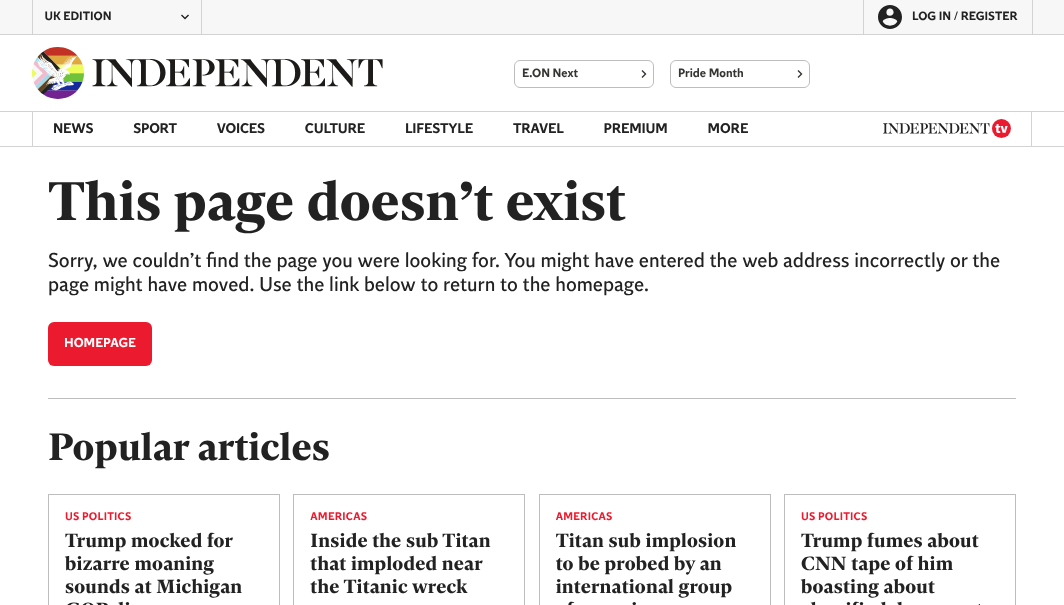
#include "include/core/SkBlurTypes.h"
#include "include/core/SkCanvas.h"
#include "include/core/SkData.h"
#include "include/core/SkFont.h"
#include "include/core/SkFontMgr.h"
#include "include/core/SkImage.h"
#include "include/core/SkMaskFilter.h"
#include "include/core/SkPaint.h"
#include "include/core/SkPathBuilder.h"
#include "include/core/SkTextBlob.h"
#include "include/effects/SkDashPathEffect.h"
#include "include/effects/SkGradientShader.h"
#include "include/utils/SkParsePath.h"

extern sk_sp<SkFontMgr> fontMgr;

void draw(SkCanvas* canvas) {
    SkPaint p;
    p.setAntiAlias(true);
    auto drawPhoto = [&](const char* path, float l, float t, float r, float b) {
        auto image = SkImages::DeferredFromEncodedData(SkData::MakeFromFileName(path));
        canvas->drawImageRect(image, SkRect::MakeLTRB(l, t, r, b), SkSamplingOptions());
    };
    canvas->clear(0xFFFFFFFF);
    drawPhoto("media/1.png", 0, 0, 1064, 605);
}
